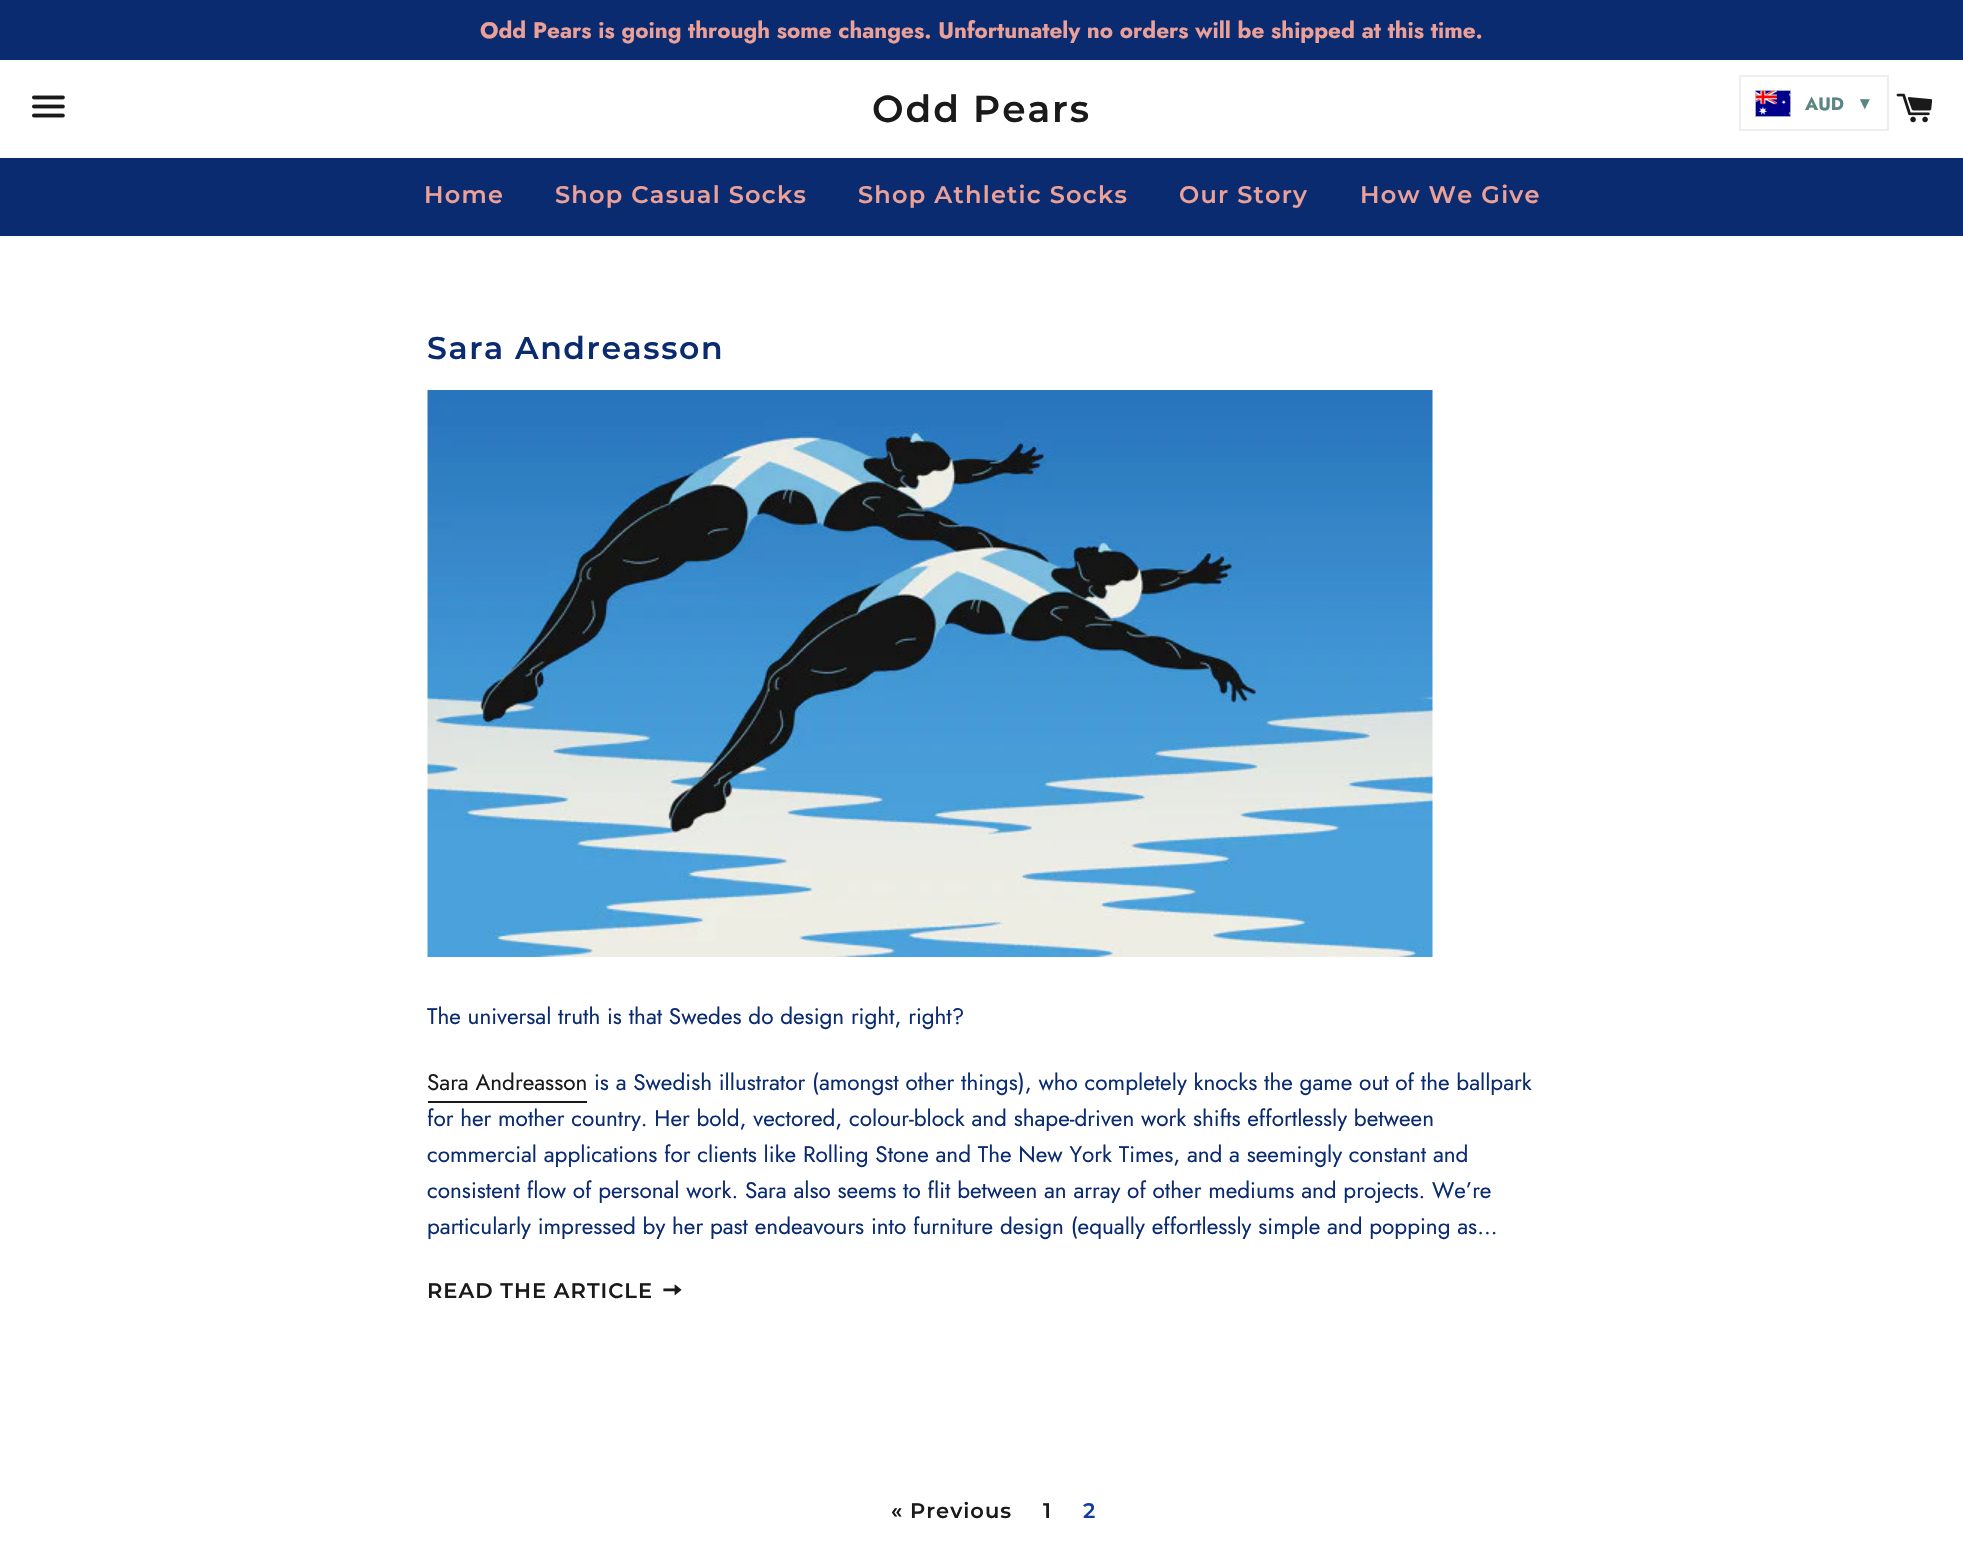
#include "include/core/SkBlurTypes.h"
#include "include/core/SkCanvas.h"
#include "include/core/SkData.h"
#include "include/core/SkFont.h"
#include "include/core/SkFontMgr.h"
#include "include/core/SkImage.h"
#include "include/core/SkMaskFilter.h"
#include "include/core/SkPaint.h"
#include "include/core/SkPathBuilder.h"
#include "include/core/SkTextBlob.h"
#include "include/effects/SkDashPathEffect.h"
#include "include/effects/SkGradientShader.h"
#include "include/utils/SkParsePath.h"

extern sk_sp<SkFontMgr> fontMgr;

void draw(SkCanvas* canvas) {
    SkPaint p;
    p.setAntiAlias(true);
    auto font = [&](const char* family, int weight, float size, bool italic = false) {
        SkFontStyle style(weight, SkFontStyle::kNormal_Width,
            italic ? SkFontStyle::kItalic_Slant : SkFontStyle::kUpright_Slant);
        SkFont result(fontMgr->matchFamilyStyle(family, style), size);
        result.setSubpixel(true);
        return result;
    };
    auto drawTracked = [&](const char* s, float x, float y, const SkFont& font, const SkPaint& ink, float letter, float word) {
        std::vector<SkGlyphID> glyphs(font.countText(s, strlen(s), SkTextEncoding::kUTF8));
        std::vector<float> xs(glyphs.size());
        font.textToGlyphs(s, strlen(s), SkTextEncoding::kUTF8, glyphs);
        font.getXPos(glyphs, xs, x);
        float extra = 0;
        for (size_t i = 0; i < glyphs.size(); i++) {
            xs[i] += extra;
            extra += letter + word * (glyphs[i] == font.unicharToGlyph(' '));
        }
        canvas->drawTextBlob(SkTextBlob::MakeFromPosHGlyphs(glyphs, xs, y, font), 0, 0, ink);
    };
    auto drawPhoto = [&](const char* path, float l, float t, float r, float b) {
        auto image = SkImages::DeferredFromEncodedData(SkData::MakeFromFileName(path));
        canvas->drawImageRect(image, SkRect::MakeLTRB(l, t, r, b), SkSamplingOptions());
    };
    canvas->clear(0xFFFFFFFF);
    p.setColor(0xFF0B2B70);
    canvas->drawRect(SkRect::MakeLTRB(0, 0, 1963, 60), p);
    auto font1 = font("Jost", 700, 22.5f);
    p.setColor(0xFFEBA098);
    canvas->drawString("Odd Pears is going through some changes. Unfortunately no orders will be shipped at this time.", 480, 38, font1, p);
    drawPhoto("media/1.png", 32, 95, 65, 118);
    auto font2 = font("Montserrat", 600, 37.5f);
    p.setColor(0xFF1A1A1A);
    drawTracked("Odd Pears", 872, 122, font2, p, 1.9f, 0);
    drawPhoto("media/2.png", 1896, 93, 1933, 123);
    p.setColor(0xFF0B2B70);
    canvas->drawRect(SkRect::MakeLTRB(0, 158, 1963, 236), p);
    auto font3 = font("Montserrat", 600, 24);
    p.setColor(0xFFEBA098);
    {
        const struct { const char* s; float x, y; } items[] = {
            {"Home", 424, 203},
            {"Shop Casual Socks", 555, 203},
            {"Shop Athletic Socks", 858, 203},
            {"Our Story", 1179, 203},
            {"How We Give", 1360, 203},
        };
        for (auto [s, x, y] : items) {
            drawTracked(s, x, y, font3, p, 1.25f, 0);
        }
    }
    auto font4 = font("Montserrat", 600, 31.5f);
    p.setColor(0xFF0B2B70);
    drawTracked("Sara Andreasson", 427, 359, font4, p, 1.6f, 0);
    drawPhoto("media/3.png", 427, 390, 1433, 957);
    auto font5 = font("Jost", 400, 22.5f);
    canvas->drawString("The universal truth is that Swedes do design right, right?", 427, 1024, font5, p);
    p.setColor(0xFF1A1A1A);
    canvas->drawString("Sara Andreasson", 427, 1090, font5, p);
    p.setColor(0xFF0B2B70);
    canvas->drawString("is a Swedish illustrator (amongst other things), who completely knocks the game out of the ballpark", 594, 1090, font5, p);
    canvas->drawString("for her mother country. Her bold, vectored, colour-block and shape-driven work shifts effortlessly between", 427, 1126, font5, p);
    p.setColor(0xFF1A1A1A);
    canvas->drawRect(SkRect::MakeLTRB(428, 1101, 587, 1103), p);
    p.setColor(0xFF0B2B70);
    {
        const struct { const char* s; float x, y; } items[] = {
            {"commercial applications for clients like Rolling Stone and The New York Times, and a seemingly constant and", 427, 1162},
            {"consistent flow of personal work. Sara also seems to flit between an array of other mediums and projects. We’re", 427, 1198},
            {"particularly impressed by her past endeavours into furniture design (equally effortlessly simple and popping as...", 427, 1234},
        };
        for (auto [s, x, y] : items) {
            canvas->drawString(s, x, y, font5, p);
        }
    }
    auto font6 = font("Montserrat", 600, 21);
    p.setColor(0xFF1A1A1A);
    drawTracked("READ THE ARTICLE", 427, 1298, font6, p, 1, 0);
    drawPhoto("media/4.png", 663, 1284, 682, 1296);
    drawTracked("« Previous", 891, 1518, font6, p, 1, 0);
    drawTracked("1", 1043, 1518, font6, p, 1, 0);
    p.setColor(0xFF103D9E);
    drawTracked("2", 1083, 1518, font6, p, 1, 0);
    drawPhoto("media/5.png", 1755, 90, 1791, 117);
    p.setStyle(SkPaint::kStroke_Style);
    p.setStrokeWidth(2);
    p.setColor(0xFFEEEEEE);
    canvas->drawRect(SkRect::MakeLTRB(1740, 76, 1888, 130), p);
    auto font7 = font("Jost", 700, 18);
    p.setStyle(SkPaint::kFill_Style);
    p.setColor(0xFF5B8583);
    canvas->drawString("AUD", 1805, 110, font7, p);
    auto font8 = font("DejaVu Sans", 700, 18);
    canvas->drawString("▾", 1860, 109, font8, p);
}
